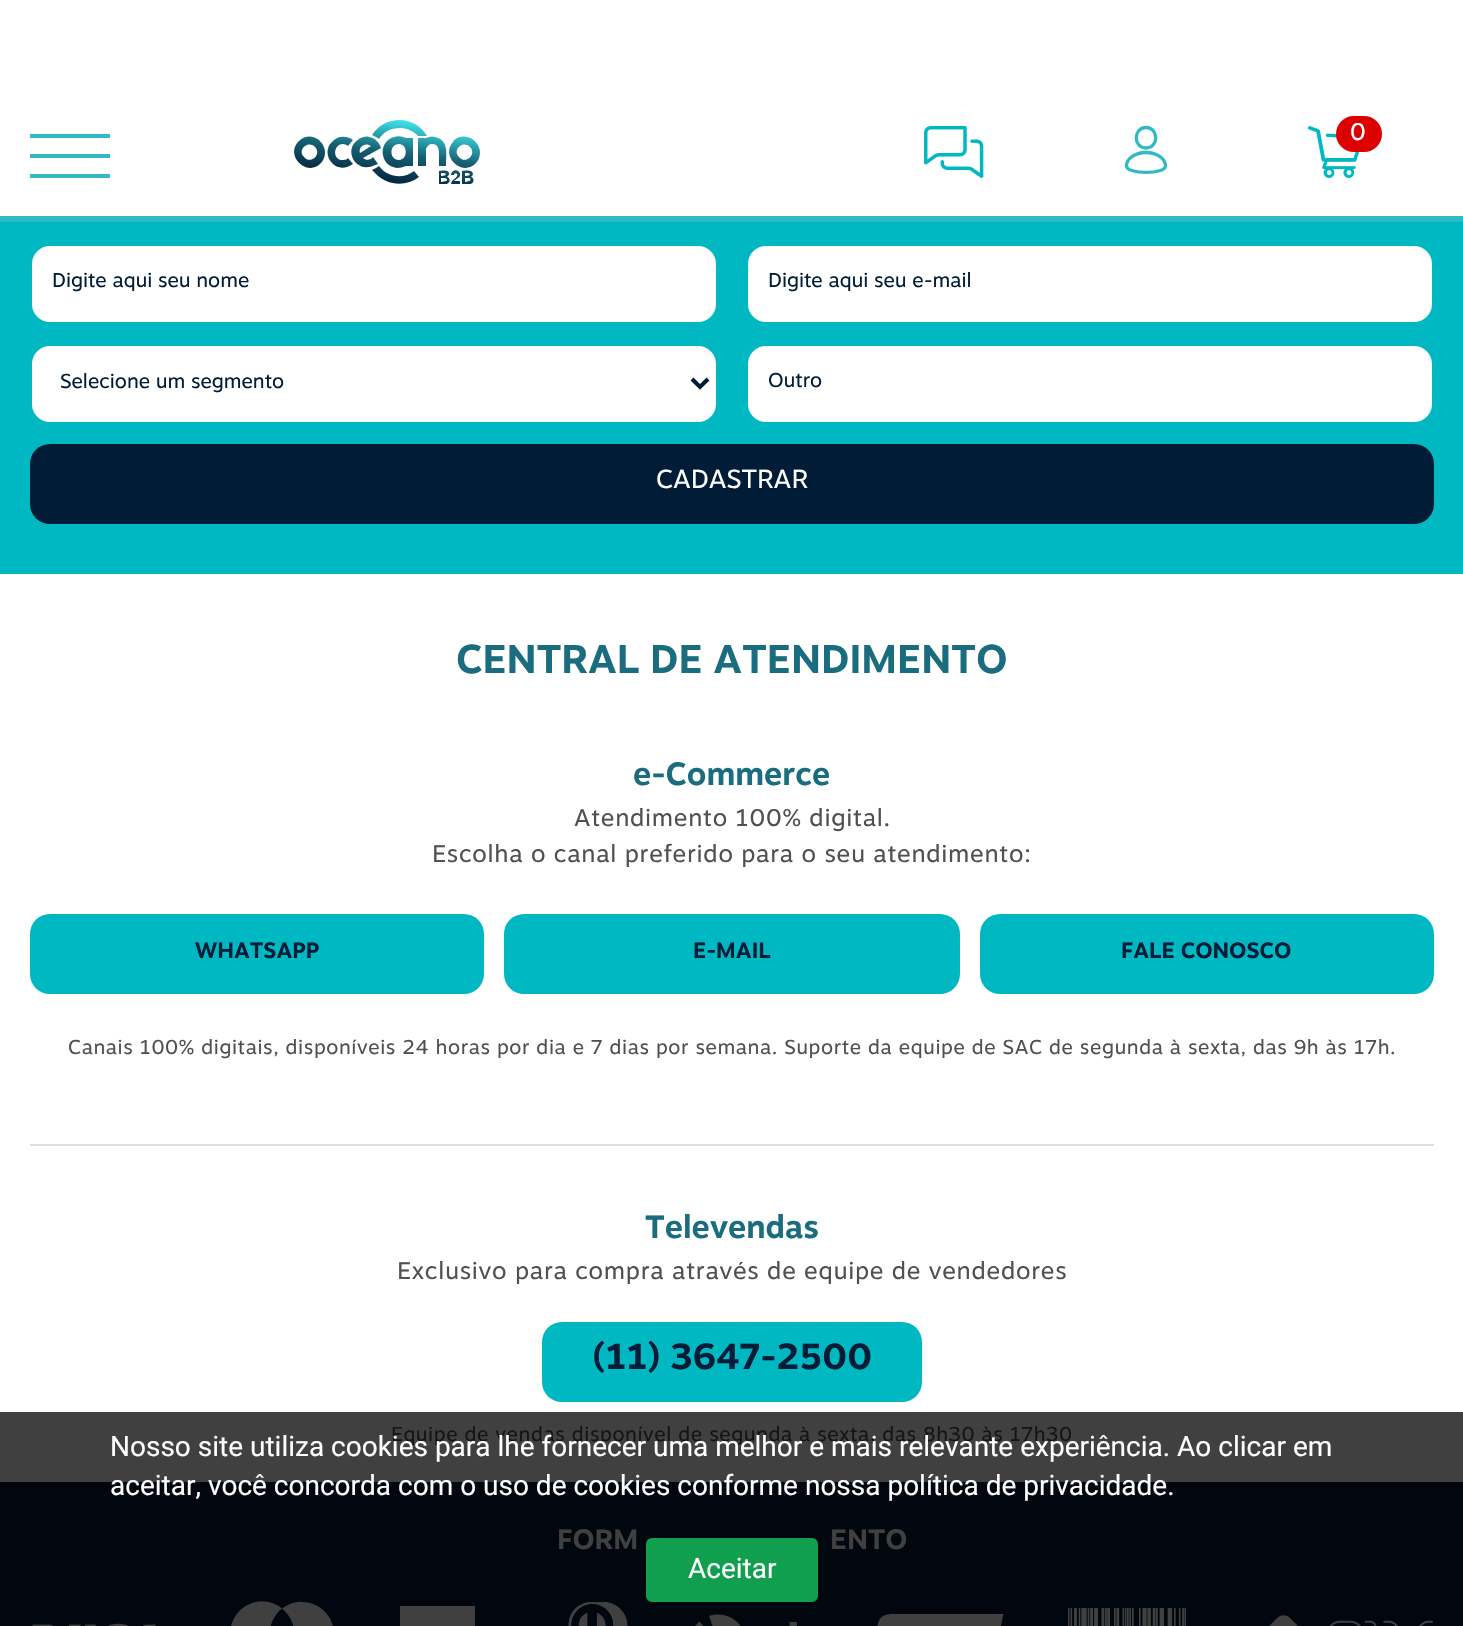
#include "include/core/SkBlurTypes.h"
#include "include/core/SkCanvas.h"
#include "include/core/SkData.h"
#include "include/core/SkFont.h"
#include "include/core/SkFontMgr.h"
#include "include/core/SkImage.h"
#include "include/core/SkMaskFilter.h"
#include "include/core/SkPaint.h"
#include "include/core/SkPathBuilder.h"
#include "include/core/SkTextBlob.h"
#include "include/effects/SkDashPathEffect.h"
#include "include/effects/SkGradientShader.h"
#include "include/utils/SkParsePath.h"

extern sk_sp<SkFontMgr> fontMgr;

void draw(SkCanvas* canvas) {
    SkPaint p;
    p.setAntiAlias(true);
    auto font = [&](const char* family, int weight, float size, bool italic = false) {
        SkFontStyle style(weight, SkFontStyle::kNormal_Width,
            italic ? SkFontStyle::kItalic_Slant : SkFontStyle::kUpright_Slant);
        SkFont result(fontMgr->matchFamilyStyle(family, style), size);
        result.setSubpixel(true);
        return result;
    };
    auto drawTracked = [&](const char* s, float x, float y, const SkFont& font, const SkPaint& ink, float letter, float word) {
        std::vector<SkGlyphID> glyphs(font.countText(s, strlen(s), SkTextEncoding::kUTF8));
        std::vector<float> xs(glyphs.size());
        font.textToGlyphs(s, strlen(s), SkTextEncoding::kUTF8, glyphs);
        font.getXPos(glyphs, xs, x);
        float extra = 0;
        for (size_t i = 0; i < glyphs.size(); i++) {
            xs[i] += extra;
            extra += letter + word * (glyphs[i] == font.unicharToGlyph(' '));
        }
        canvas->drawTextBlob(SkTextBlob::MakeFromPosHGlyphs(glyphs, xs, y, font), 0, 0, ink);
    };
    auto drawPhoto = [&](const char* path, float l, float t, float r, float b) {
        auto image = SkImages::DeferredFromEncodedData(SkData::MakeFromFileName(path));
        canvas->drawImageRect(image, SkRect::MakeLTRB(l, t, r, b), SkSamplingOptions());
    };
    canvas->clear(0xFFFFFFFF);
    p.setColor(0xFF404040);
    canvas->drawRect(SkRect::MakeLTRB(0, 1412, 1463, 1482), p);
    p.setColor(0xFF32BAC4);
    canvas->drawRect(SkRect::MakeLTRB(0, 216, 1463, 222), p);
    {
        const SkColor colors[] = {0xFF011C37, 0xFF052A43, 0xFF09374E, 0xFF0E475C, 0xFF115266, 0xFF166173, 0xFF41E8EE};
        const float stops[] = {0, 0.1f, 0.2f, 0.3f, 0.4f, 0.51f, 1};
        const SkPoint ends[] = {{382, 186}, {392, 118}};
        p.setShader(SkGradientShader::MakeLinear(ends, colors, stops, 7, SkTileMode::kClamp));
        p.setAlpha(255);
    }
    canvas->drawPath(SkPathBuilder(SkPathFillType::kEvenOdd).moveTo(372, 135).cubicTo(374, 136, 377, 137, 379, 139).cubicTo(387, 126, 407, 124, 418, 136).lineTo(427, 136).cubicTo(415, 115, 385, 115, 372, 135).close().moveTo(453, 141).lineTo(454, 141).cubicTo(439, 155, 462, 178, 476, 163).cubicTo(489, 148, 468, 127, 453, 141).close().moveTo(375, 165).lineTo(378, 164).lineTo(373, 157).cubicTo(371, 160, 366, 161, 363, 158).lineTo(381, 148).cubicTo(379, 142, 375, 138, 369, 137).cubicTo(366, 136, 362, 137, 359, 139).cubicTo(342, 149, 356, 175, 375, 165).close().moveTo(353, 164).lineTo(348, 158).cubicTo(347, 160, 344, 160, 341, 160).cubicTo(332, 158, 334, 144, 343, 144).cubicTo(345, 144, 347, 145, 348, 146).lineTo(353, 140).cubicTo(346, 135, 337, 136, 332, 142).cubicTo(326, 147, 326, 157, 332, 163).cubicTo(337, 169, 346, 169, 353, 164).close().moveTo(413, 166).lineTo(413, 138).lineTo(406, 138).lineTo(403, 137).cubicTo(400, 136, 397, 136, 394, 137).cubicTo(378, 141, 379, 166, 397, 168).cubicTo(400, 168, 403, 167, 406, 166).close().moveTo(299, 141).cubicTo(284, 155, 307, 178, 321, 163).cubicTo(334, 148, 313, 127, 299, 141).close().moveTo(418, 138).lineTo(418, 166).lineTo(426, 166).lineTo(426, 149).cubicTo(427, 146, 429, 144, 432, 144).cubicTo(439, 144, 439, 150, 439, 156).lineTo(439, 166).lineTo(446, 166).cubicTo(446, 156, 449, 142, 438, 138).cubicTo(434, 136, 430, 136, 426, 138).close().moveTo(399, 144).cubicTo(408, 144, 408, 160, 399, 160).cubicTo(389, 160, 389, 144, 399, 144).close().moveTo(315, 147).cubicTo(322, 154, 311, 165, 304, 157).cubicTo(297, 150, 308, 140, 315, 147).close().moveTo(470, 147).cubicTo(477, 154, 466, 165, 459, 157).cubicTo(452, 150, 463, 140, 470, 147).close().moveTo(360, 153).cubicTo(358, 146, 366, 142, 371, 146).close().moveTo(375, 173).cubicTo(387, 186, 406, 187, 419, 177).lineTo(414, 171).cubicTo(403, 180, 387, 177, 379, 166).lineTo(376, 168).lineTo(372, 170).close().moveTo(439, 184).lineTo(439, 171).cubicTo(441, 171, 449, 169, 449, 174).cubicTo(449, 175, 448, 176, 447, 177).cubicTo(451, 178, 450, 184, 446, 184).close().moveTo(454, 175).lineTo(451, 175).cubicTo(451, 172, 455, 169, 458, 171).cubicTo(464, 176, 456, 179, 454, 181).lineTo(460, 181).lineTo(460, 184).lineTo(451, 184).cubicTo(452, 179, 456, 179, 457, 176).cubicTo(459, 173, 454, 172, 454, 175).close().moveTo(462, 184).lineTo(462, 171).cubicTo(465, 171, 472, 169, 473, 174).cubicTo(473, 175, 472, 176, 471, 177).cubicTo(475, 178, 474, 184, 470, 184).close().moveTo(441, 173).lineTo(441, 176).cubicTo(448, 176, 446, 173, 444, 173).close().moveTo(465, 173).lineTo(465, 176).cubicTo(472, 176, 470, 173, 468, 173).close().moveTo(441, 178).lineTo(441, 182).lineTo(446, 181).cubicTo(448, 181, 447, 178, 445, 178).close().moveTo(465, 178).lineTo(465, 182).lineTo(469, 181).cubicTo(471, 181, 471, 178, 469, 178).close().detach(), p);
    drawPhoto("media/1.png", 924, 126, 984, 178);
    p.setStyle(SkPaint::kStroke_Style);
    p.setStrokeWidth(3.3f);
    p.setShader(nullptr);
    p.setColor(0xFF32BAC4);
    canvas->drawPath(SkPathBuilder().moveTo(1146, 127.5f).cubicTo(1159, 127.5f, 1159, 148, 1146, 148).cubicTo(1133, 148, 1133, 127.5f, 1146, 127.5f).close().moveTo(1146, 152.5f).cubicTo(1156.5f, 152.5f, 1165.5f, 158.5f, 1165.5f, 166).cubicTo(1165.5f, 174.5f, 1126.5f, 174.5f, 1126.5f, 166).cubicTo(1126.5f, 158.5f, 1135.5f, 152.5f, 1146, 152.5f).close().detach(), p);
    drawPhoto("media/2.png", 1308, 126, 1360, 178);
    p.setStyle(SkPaint::kFill_Style);
    p.setColor(0xFFDD0000);
    canvas->drawRoundRect(SkRect::MakeLTRB(1336, 116, 1382, 152), 18, 18, p);
    auto font1 = font("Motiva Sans", 400, 24);
    p.setColor(0xFFFFFFFF);
    drawTracked("0", 1350, 140, font1, p, 2, 0);
    {
        const struct { float l, t, r, b; SkColor color; } items[] = {
            {30, 154, 110, 158, 0xFF32BAC4},
            {30, 134, 110, 138, 0xFF32BAC4},
            {30, 174, 110, 178, 0xFF32BAC4},
            {0, 222, 1463, 574, 0xFF00B8C2},
        };
        for (auto [l, t, r, b, color] : items) {
            p.setColor(color);
            canvas->drawRect(SkRect::MakeLTRB(l, t, r, b), p);
        }
    }
    p.setColor(0xFFFFFFFF);
    canvas->drawRoundRect(SkRect::MakeLTRB(31, 245, 717, 323), 19, 19, p);
    p.setStyle(SkPaint::kStroke_Style);
    p.setStrokeWidth(2);
    p.setColor(0xFF00B8C2);
    canvas->drawRoundRect(SkRect::MakeLTRB(31, 245, 717, 323), 19, 19, p);
    auto font2 = font("Motiva Sans", 400, 20);
    p.setStyle(SkPaint::kFill_Style);
    p.setColor(0xFF011C37);
    canvas->drawString("Digite aqui seu nome", 52, 287, font2, p);
    p.setColor(0xFFFFFFFF);
    canvas->drawRoundRect(SkRect::MakeLTRB(747, 245, 1433, 323), 19, 19, p);
    p.setStyle(SkPaint::kStroke_Style);
    p.setColor(0xFF00B8C2);
    canvas->drawRoundRect(SkRect::MakeLTRB(747, 245, 1433, 323), 19, 19, p);
    p.setStyle(SkPaint::kFill_Style);
    p.setColor(0xFF011C37);
    canvas->drawString("Digite aqui seu e-mail", 768, 287, font2, p);
    p.setColor(0xFFFFFFFF);
    canvas->drawRoundRect(SkRect::MakeLTRB(31, 345, 717, 423), 19, 19, p);
    p.setStyle(SkPaint::kStroke_Style);
    p.setColor(0xFF00B8C2);
    canvas->drawRoundRect(SkRect::MakeLTRB(31, 345, 717, 423), 19, 19, p);
    p.setStrokeWidth(4);
    p.setColor(0xFF011C37);
    canvas->drawPath(SkPathBuilder().moveTo(692, 379).lineTo(700, 387).lineTo(708, 379).detach(), p);
    p.setStyle(SkPaint::kFill_Style);
    canvas->drawString("Selecione um segmento", 60, 388, font2, p);
    p.setColor(0xFFFFFFFF);
    canvas->drawRoundRect(SkRect::MakeLTRB(747, 345, 1433, 423), 19, 19, p);
    p.setStyle(SkPaint::kStroke_Style);
    p.setStrokeWidth(2);
    p.setColor(0xFF00B8C2);
    canvas->drawRoundRect(SkRect::MakeLTRB(747, 345, 1433, 423), 19, 19, p);
    p.setStyle(SkPaint::kFill_Style);
    p.setColor(0xFF011C37);
    canvas->drawString("Outro", 768, 387, font2, p);
    canvas->drawRoundRect(SkRect::MakeLTRB(30, 444, 1434, 524), 20, 20, p);
    auto font3 = font("Motiva Sans", 400, 26);
    p.setColor(0xFFFFFFFF);
    canvas->drawString("CADASTRAR", 656, 488, font3, p);
    auto font4 = font("Motiva Sans", 700, 40);
    p.setColor(0xFF1A6D7E);
    canvas->drawString("CENTRAL DE ATENDIMENTO", 456, 673, font4, p);
    auto font5 = font("Motiva Sans", 700, 32);
    canvas->drawString("e-Commerce", 633, 785, font5, p);
    p.setColor(0xFF505050);
    drawTracked("Atendimento 100% digital.", 574, 826, font1, p, 0.72f, 0);
    drawTracked("Escolha o canal preferido para o seu atendimento:", 432, 862, font1, p, 0.72f, 0);
    p.setColor(0xFF00B8C2);
    canvas->drawRoundRect(SkRect::MakeLTRB(30, 914, 484, 994), 20, 20, p);
    auto font6 = font("Motiva Sans", 700, 22);
    p.setColor(0xFF011C37);
    canvas->drawString("WHATSAPP", 195, 958, font6, p);
    p.setColor(0xFF00B8C2);
    canvas->drawRoundRect(SkRect::MakeLTRB(504, 914, 960, 994), 20, 20, p);
    p.setColor(0xFF011C37);
    canvas->drawString("E-MAIL", 693, 958, font6, p);
    p.setColor(0xFF00B8C2);
    canvas->drawRoundRect(SkRect::MakeLTRB(980, 914, 1434, 994), 20, 20, p);
    p.setColor(0xFF011C37);
    canvas->drawString("FALE CONOSCO", 1121, 958, font6, p);
    p.setColor(0xFFDFDFDF);
    canvas->drawRect(SkRect::MakeLTRB(30, 1144, 1434, 1146), p);
    p.setColor(0xFF505050);
    drawTracked("Canais 100% digitais, disponíveis 24 horas por dia e 7 dias por semana. Suporte da equipe de SAC de segunda à sexta, das 9h às 17h.", 68, 1054, font2, p, 0.6f, 0);
    p.setColor(0xFF1A6D7E);
    canvas->drawString("Televendas", 645, 1238, font5, p);
    p.setColor(0xFF505050);
    drawTracked("Exclusivo para compra através de equipe de vendedores", 397, 1279, font1, p, 0.72f, 0);
    p.setColor(0xFF00B8C2);
    canvas->drawRoundRect(SkRect::MakeLTRB(542, 1322, 922, 1402), 20, 20, p);
    auto font7 = font("Motiva Sans", 700, 36);
    p.setColor(0xFF011C37);
    canvas->drawString("(11) 3647-2500", 592, 1369, font7, p);
    p.setColor(0xFF141414);
    drawTracked("Equipe de vendas disponível de segunda à sexta, das 8h30 às 17h30", 391, 1441, font2, p, 0.6f, 0);
    p.setColor(0xFF00070E);
    canvas->drawRect(SkRect::MakeLTRB(0, 1482, 1463, 1626), p);
    auto font8 = font("Motiva Sans", 700, 28);
    p.setColor(0xFF404040);
    canvas->drawString("FORM", 557, 1549, font8, p);
    canvas->drawString("ENTO", 830, 1549, font8, p);
    drawPhoto("media/3.png", 32, 1623, 156, 1626);
    drawPhoto("media/4.png", 231, 1601, 333, 1626);
    canvas->drawRect(SkRect::MakeLTRB(400, 1606, 475, 1626), p);
    drawPhoto("media/5.png", 568, 1602, 628, 1626);
    drawPhoto("media/6.png", 695, 1614, 797, 1626);
    drawPhoto("media/7.png", 877, 1614, 1004, 1626);
    drawPhoto("media/8.png", 1068, 1608, 1186, 1626);
    drawPhoto("media/9.png", 1269, 1615, 1433, 1626);
    auto font9 = font("Roboto", 400, 28);
    p.setColor(0xFFFFFFFF);
    canvas->drawString("Nosso site utiliza cookies para lhe fornecer uma melhor e mais relevante experiência. Ao clicar em", 110, 1456, font9, p);
    canvas->drawString("aceitar, você concorda com o uso de cookies conforme nossa política de privacidade.", 110, 1495, font9, p);
    p.setColor(0xFF0F9F4F);
    canvas->drawRoundRect(SkRect::MakeLTRB(647, 1539, 817, 1601), 5, 5, p);
    p.setStyle(SkPaint::kStroke_Style);
    canvas->drawRoundRect(SkRect::MakeLTRB(647, 1539, 817, 1601), 5, 5, p);
    p.setStyle(SkPaint::kFill_Style);
    p.setColor(0xFFFFFFFF);
    canvas->drawString("Aceitar", 688, 1578, font9, p);
}
